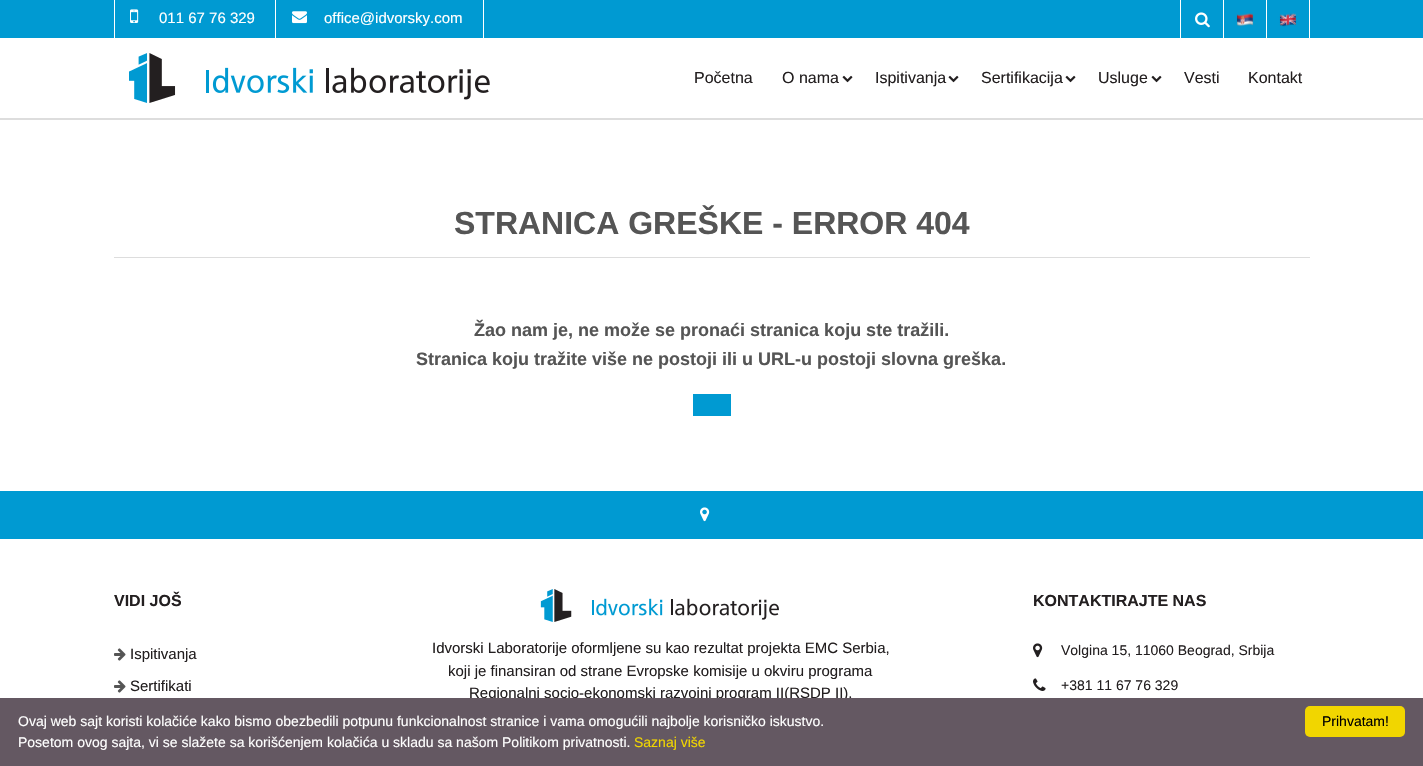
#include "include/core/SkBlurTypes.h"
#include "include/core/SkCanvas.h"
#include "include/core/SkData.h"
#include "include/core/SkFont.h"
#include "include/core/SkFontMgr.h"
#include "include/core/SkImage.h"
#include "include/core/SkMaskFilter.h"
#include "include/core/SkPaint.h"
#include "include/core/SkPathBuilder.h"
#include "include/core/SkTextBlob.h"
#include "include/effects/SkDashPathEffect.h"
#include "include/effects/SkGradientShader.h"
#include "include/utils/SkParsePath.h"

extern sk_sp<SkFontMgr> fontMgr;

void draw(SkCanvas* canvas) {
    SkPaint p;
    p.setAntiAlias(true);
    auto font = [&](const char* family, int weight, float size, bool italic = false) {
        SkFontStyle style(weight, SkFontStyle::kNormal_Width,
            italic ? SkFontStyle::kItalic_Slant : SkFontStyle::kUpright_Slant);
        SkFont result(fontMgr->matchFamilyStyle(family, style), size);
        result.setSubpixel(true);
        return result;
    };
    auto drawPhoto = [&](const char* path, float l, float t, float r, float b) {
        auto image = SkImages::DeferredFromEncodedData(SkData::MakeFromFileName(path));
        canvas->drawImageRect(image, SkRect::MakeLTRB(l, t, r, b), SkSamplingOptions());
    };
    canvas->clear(0xFFFFFFFF);
    {
        const struct { float l, t, r, b; SkColor color; } items[] = {
            {0, 118, 1423, 120, 0xFFDDDDDD},
            {0, 0, 1423, 38, 0xFF009AD2},
            {275, 0, 276, 38, 0xFFFFFFFF},
            {114, 0, 115, 38, 0xFFFFFFFF},
        };
        for (auto [l, t, r, b, color] : items) {
            p.setColor(color);
            canvas->drawRect(SkRect::MakeLTRB(l, t, r, b), p);
        }
    }
    drawPhoto("media/1.png", 130, 9, 139, 23);
    auto font1 = font("Liberation Sans", 400, 15);
    canvas->drawString("011 67 76 329", 159, 23, font1, p);
    canvas->drawRect(SkRect::MakeLTRB(483, 0, 484, 38), p);
    drawPhoto("media/2.png", 292, 11, 307, 24);
    canvas->drawString("office@idvorsky.com", 324, 23, font1, p);
    canvas->drawRect(SkRect::MakeLTRB(1223, 0, 1224, 38), p);
    canvas->drawRect(SkRect::MakeLTRB(1180, 0, 1181, 38), p);
    drawPhoto("media/3.png", 1195, 12, 1210, 28);
    drawPhoto("media/4.png", 1236, 13, 1254, 27);
    canvas->drawRect(SkRect::MakeLTRB(1266, 0, 1267, 38), p);
    drawPhoto("media/5.png", 1279, 13, 1297, 27);
    canvas->drawRect(SkRect::MakeLTRB(1309, 0, 1310, 38), p);
    drawPhoto("media/6.png", 129, 53, 490, 103);
    auto font2 = font("Liberation Sans", 400, 16);
    p.setColor(0xFF231F20);
    canvas->drawString("Početna", 694, 83, font2, p);
    canvas->drawString("O nama", 782, 83, font2, p);
    drawPhoto("media/7.png", 842, 75, 853, 83);
    canvas->drawString("Ispitivanja", 875, 83, font2, p);
    drawPhoto("media/7.png", 948, 75, 959, 83);
    canvas->drawString("Sertifikacija", 981, 83, font2, p);
    drawPhoto("media/7.png", 1065, 75, 1076, 83);
    canvas->drawString("Usluge", 1098, 83, font2, p);
    drawPhoto("media/7.png", 1151, 75, 1162, 83);
    canvas->drawString("Vesti", 1184, 83, font2, p);
    canvas->drawString("Kontakt", 1248, 83, font2, p);
    p.setColor(0xFFDDDDDD);
    canvas->drawRect(SkRect::MakeLTRB(114, 257, 1310, 258), p);
    auto font3 = font("Liberation Sans", 700, 32);
    p.setColor(0xFF555555);
    canvas->drawString("STRANICA GREŠKE - ERROR 404", 454, 234, font3, p);
    auto font4 = font("Liberation Sans", 700, 18);
    canvas->drawString("Žao nam je, ne može se pronaći stranica koju ste tražili.", 474, 336, font4, p);
    canvas->drawString("Stranica koju tražite više ne postoji ili u URL-u postoji slovna greška.", 416, 365, font4, p);
    p.setColor(0xFF009AD2);
    canvas->drawRect(SkRect::MakeLTRB(693, 394, 731, 416), p);
    canvas->drawRect(SkRect::MakeLTRB(0, 491, 1423, 539), p);
    drawPhoto("media/8.png", 700, 507, 710, 522);
    auto font5 = font("Liberation Sans", 700, 16);
    p.setColor(0xFF231F20);
    canvas->drawString("VIDI JOŠ", 114, 606, font5, p);
    drawPhoto("media/9.png", 114, 648, 126, 661);
    canvas->drawString("Ispitivanja", 130, 659, font1, p);
    drawPhoto("media/9.png", 114, 680, 126, 693);
    canvas->drawString("Sertifikati", 130, 691, font1, p);
    drawPhoto("media/10.png", 540, 589, 779, 622);
    {
        const struct { const char* s; float x, y; } items[] = {
            {"Idvorski Laboratorije oformljene su kao rezultat projekta EMC Serbia,", 432, 653},
            {"koji je finansiran od strane Evropske komisije u okviru programa", 448, 676},
            {"Regionalni socio-ekonomski razvojni program II(RSDP II).", 469, 698},
        };
        for (auto [s, x, y] : items) {
            canvas->drawString(s, x, y, font1, p);
        }
    }
    canvas->drawString("KONTAKTIRAJTE NAS", 1033, 606, font5, p);
    drawPhoto("media/11.png", 1033, 643, 1043, 658);
    auto font6 = font("Liberation Sans", 400, 14);
    canvas->drawString("Volgina 15, 11060 Beograd, Srbija", 1061, 655, font6, p);
    drawPhoto("media/12.png", 1033, 678, 1046, 691);
    canvas->drawString("+381 11 67 76 329", 1061, 690, font6, p);
    p.setColor(0xFF645862);
    canvas->drawRect(SkRect::MakeLTRB(0, 698, 1423, 766), p);
    p.setColor(0xFFFFFFFF);
    canvas->drawString("Ovaj web sajt koristi kolačiće kako bismo obezbedili potpunu funkcionalnost stranice i vama omogućili najbolje korisničko iskustvo.", 18, 726, font6, p);
    canvas->drawString("Posetom ovog sajta, vi se slažete sa korišćenjem kolačića u skladu sa našom Politikom privatnosti.", 18, 747, font6, p);
    p.setColor(0xFFF1D600);
    canvas->drawString("Saznaj više", 634, 747, font6, p);
    canvas->drawRoundRect(SkRect::MakeLTRB(1305, 706, 1405, 737), 5, 5, p);
    p.setColor(0xFF000000);
    canvas->drawString("Prihvatam!", 1322, 726, font6, p);
}
